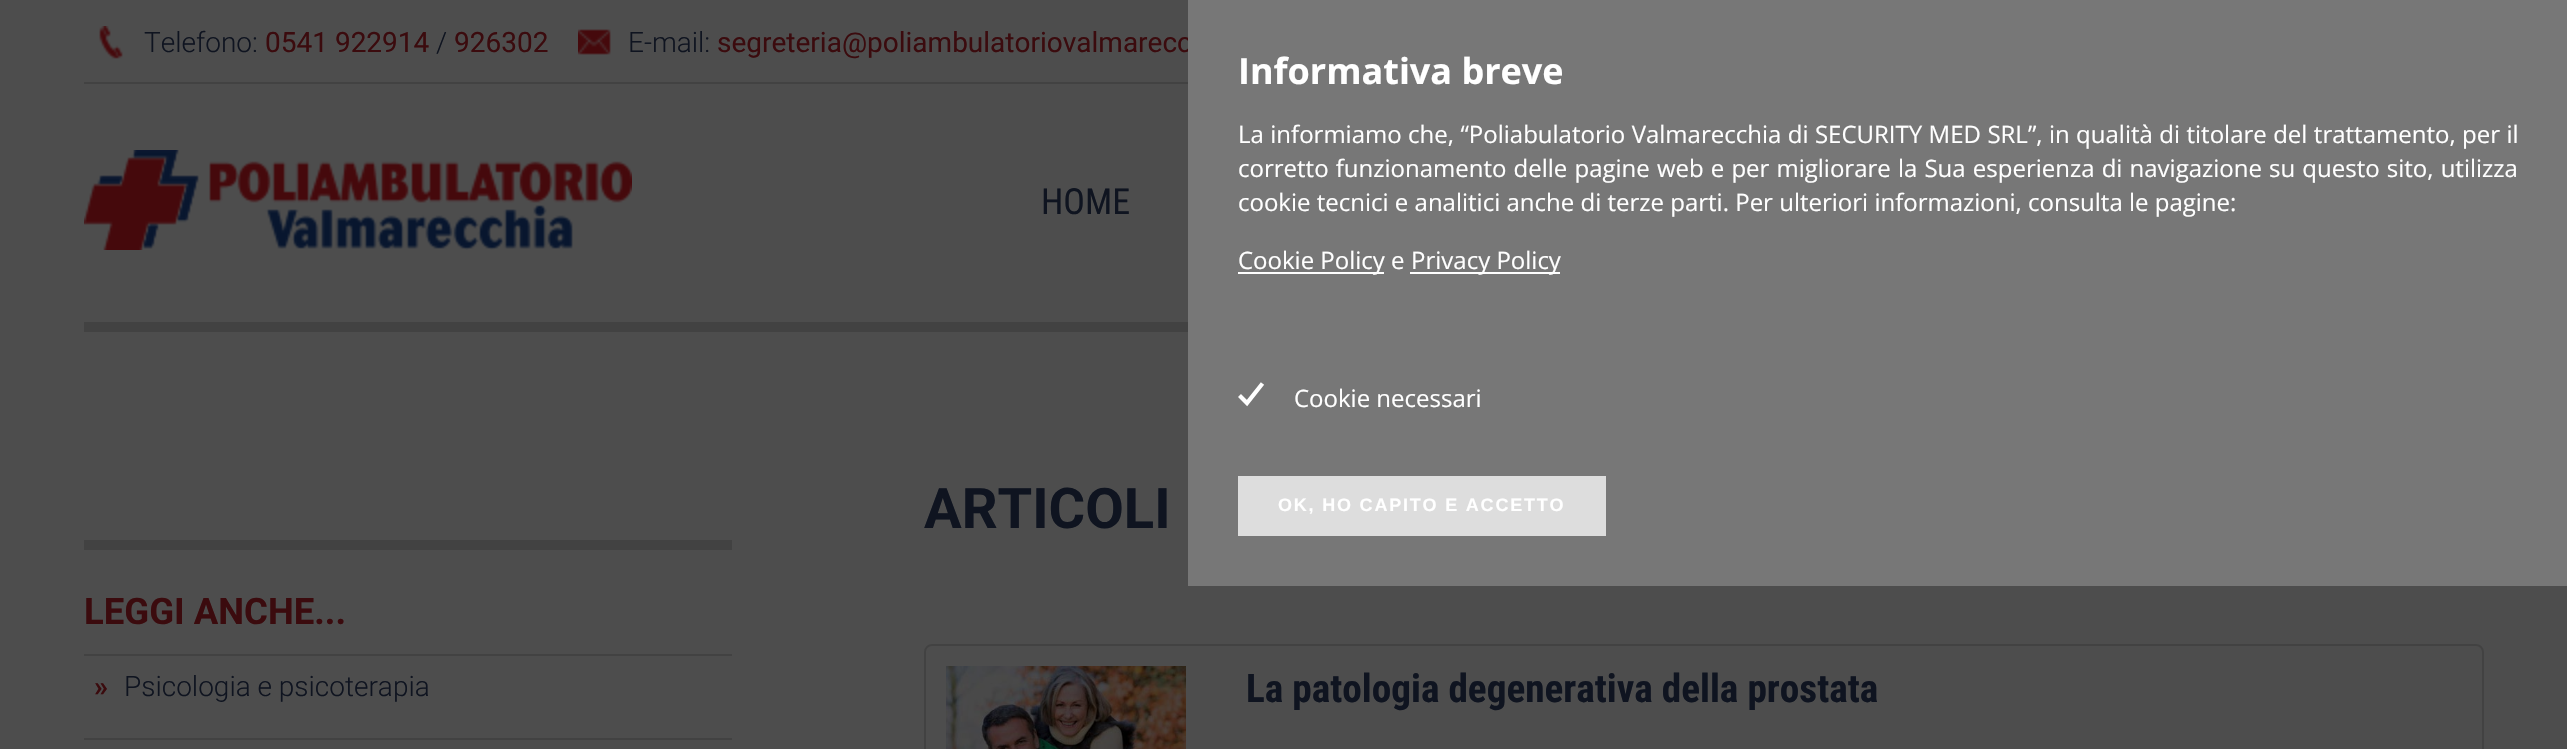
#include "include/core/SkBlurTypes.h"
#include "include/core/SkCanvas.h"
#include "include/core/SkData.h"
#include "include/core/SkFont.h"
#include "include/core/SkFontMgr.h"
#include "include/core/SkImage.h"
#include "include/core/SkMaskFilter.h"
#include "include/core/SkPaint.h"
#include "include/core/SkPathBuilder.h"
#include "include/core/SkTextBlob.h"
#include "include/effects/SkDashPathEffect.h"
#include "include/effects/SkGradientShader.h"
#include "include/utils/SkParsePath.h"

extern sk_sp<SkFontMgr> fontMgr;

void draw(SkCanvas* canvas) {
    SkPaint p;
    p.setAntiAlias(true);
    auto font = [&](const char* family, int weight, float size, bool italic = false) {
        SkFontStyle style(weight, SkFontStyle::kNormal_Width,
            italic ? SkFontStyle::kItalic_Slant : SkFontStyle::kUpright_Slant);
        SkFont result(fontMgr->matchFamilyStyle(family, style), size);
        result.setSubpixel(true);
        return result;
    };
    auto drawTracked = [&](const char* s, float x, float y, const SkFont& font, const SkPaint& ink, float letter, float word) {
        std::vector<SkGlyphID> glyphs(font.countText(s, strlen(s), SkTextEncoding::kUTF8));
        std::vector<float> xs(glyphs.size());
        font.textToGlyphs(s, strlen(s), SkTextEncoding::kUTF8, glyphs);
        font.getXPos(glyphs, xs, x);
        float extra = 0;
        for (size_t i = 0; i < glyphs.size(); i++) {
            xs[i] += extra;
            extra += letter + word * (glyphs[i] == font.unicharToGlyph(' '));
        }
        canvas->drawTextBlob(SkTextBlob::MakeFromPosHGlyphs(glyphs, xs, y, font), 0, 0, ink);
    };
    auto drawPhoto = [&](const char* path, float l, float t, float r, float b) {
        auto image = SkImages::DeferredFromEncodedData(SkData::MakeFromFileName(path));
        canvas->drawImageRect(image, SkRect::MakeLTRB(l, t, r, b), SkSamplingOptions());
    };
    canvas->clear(0xFF4D4D4D);
    p.setColor(0xFF424242);
    canvas->drawRect(SkRect::MakeLTRB(84, 82, 1188, 84), p);
    drawPhoto("media/1.png", 99, 26, 123, 59);
    auto font1 = font("Roboto", 300, 28);
    p.setColor(0xFF0F1420);
    canvas->drawString("Telefono:", 144, 52, font1, p);
    auto font2 = font("Roboto", 400, 28);
    p.setColor(0xFF3B0B0E);
    canvas->drawString("0541 922914", 265, 52, font2, p);
    p.setColor(0xFF0F1420);
    canvas->drawString("/", 436, 52, font1, p);
    p.setColor(0xFF3B0B0E);
    canvas->drawString("926302", 454, 52, font2, p);
    drawPhoto("media/2.png", 578, 29, 611, 55);
    p.setColor(0xFF0F1420);
    canvas->drawString("E-mail:", 628, 52, font1, p);
    p.setColor(0xFF3B0B0E);
    canvas->drawString("segreteria@poliambulatoriovalmarecc", 717, 52, font2, p);
    p.setColor(0xFF424242);
    canvas->drawRect(SkRect::MakeLTRB(84, 322, 1188, 332), p);
    auto font3 = font("Roboto Condensed", 400, 36);
    p.setColor(0xFF0F1420);
    canvas->drawString("HOME", 1041, 214, font3, p);
    p.setColor(0xFF777777);
    canvas->drawRect(SkRect::MakeLTRB(1188, 0, 2567, 586), p);
    auto font4 = font("Open Sans", 700, 36);
    p.setColor(0xFFFFFFFF);
    canvas->drawString("Informativa breve", 1238, 84, font4, p);
    auto font5 = font("Open Sans", 400, 24);
    drawTracked("La informiamo che, “Poliabulatorio Valmarecchia di SECURITY MED SRL”, in qualità di titolare del trattamento, per il", 1238, 143, font5, p, 0, 0.2f);
    drawTracked("corretto funzionamento delle pagine web e per migliorare la Sua esperienza di navigazione su questo sito, utilizza", 1238, 177, font5, p, 0, 0.9f);
    canvas->drawString("cookie tecnici e analitici anche di terze parti. Per ulteriori informazioni, consulta le pagine:", 1238, 211, font5, p);
    canvas->drawRect(SkRect::MakeLTRB(1238, 272, 1384, 274), p);
    canvas->drawString("Cookie Policy e", 1238, 269, font5, p);
    canvas->drawRect(SkRect::MakeLTRB(1410, 272, 1560, 274), p);
    canvas->drawString("Privacy Policy", 1411, 269, font5, p);
    p.setStyle(SkPaint::kStroke_Style);
    p.setStrokeWidth(4.2f);
    canvas->drawPath(SkPathBuilder().moveTo(1239.5f, 395.5f).lineTo(1247, 403).lineTo(1262.5f, 383.5f).detach(), p);
    p.setStyle(SkPaint::kFill_Style);
    canvas->drawString("Cookie necessari", 1294, 407, font5, p);
    p.setColor(0xFFDDDDDD);
    canvas->drawRect(SkRect::MakeLTRB(1238, 476, 1606, 536), p);
    auto font6 = font("Liberation Sans", 700, 18);
    p.setColor(0xFFFFFFFF);
    drawTracked("OK, HO CAPITO E ACCETTO", 1278, 511, font6, p, 1.8f, 0);
    drawPhoto("media/3.png", 84, 150, 632, 250);
    p.setColor(0xFF424242);
    canvas->drawRect(SkRect::MakeLTRB(84, 540, 732, 550), p);
    auto font7 = font("Roboto", 700, 36.5f);
    p.setColor(0xFF3B0B0E);
    canvas->drawString("LEGGI ANCHE...", 84, 624, font7, p);
    p.setColor(0xFF424242);
    canvas->drawRect(SkRect::MakeLTRB(84, 654, 732, 656), p);
    auto font8 = font("Roboto", 700, 28);
    p.setColor(0xFF3B0B0E);
    canvas->drawString("»", 94, 696, font8, p);
    p.setColor(0xFF0F1420);
    canvas->drawString("Psicologia e psicoterapia", 124, 696, font1, p);
    p.setColor(0xFF424242);
    canvas->drawRect(SkRect::MakeLTRB(84, 738, 732, 740), p);
    auto font9 = font("Roboto", 700, 56);
    p.setColor(0xFF0F1420);
    canvas->drawString("ARTICOLI", 924, 528, font9, p);
    p.setStyle(SkPaint::kStroke_Style);
    p.setStrokeWidth(2);
    p.setColor(0xFF424242);
    canvas->drawRoundRect(SkRect::MakeLTRB(925, 645, 2483, 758), 7, 7, p);
    drawPhoto("media/4.png", 946, 666, 1186, 749);
    auto font10 = font("Roboto Condensed", 700, 39.25f);
    p.setStyle(SkPaint::kFill_Style);
    p.setColor(0xFF0F1420);
    canvas->drawString("La patologia degenerativa della prostata", 1246, 702, font10, p);
}
